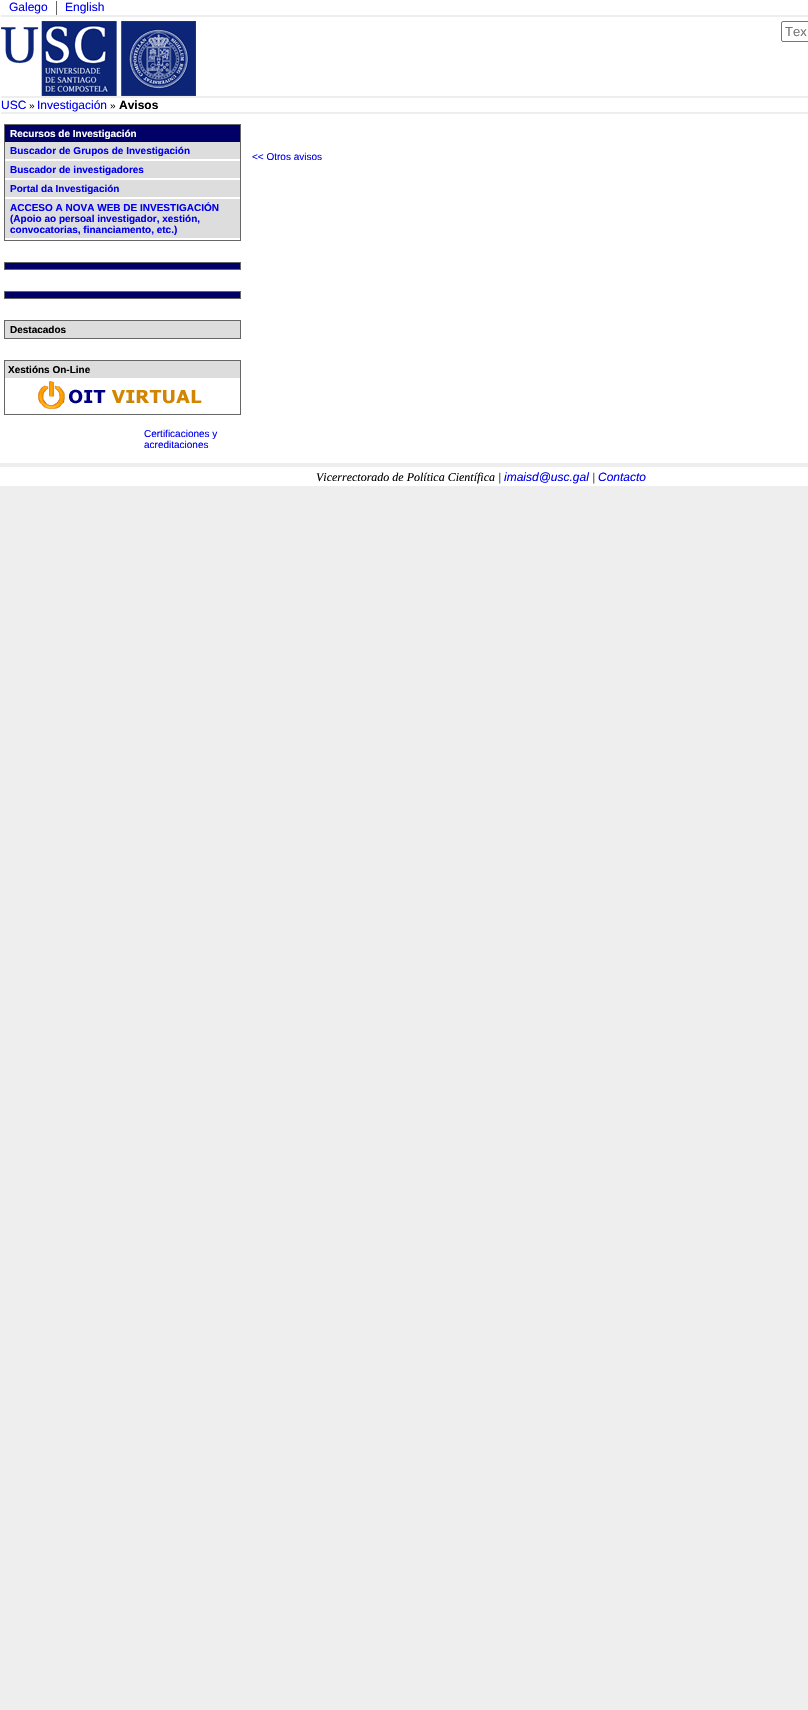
#include "include/core/SkBlurTypes.h"
#include "include/core/SkCanvas.h"
#include "include/core/SkData.h"
#include "include/core/SkFont.h"
#include "include/core/SkFontMgr.h"
#include "include/core/SkImage.h"
#include "include/core/SkMaskFilter.h"
#include "include/core/SkPaint.h"
#include "include/core/SkPathBuilder.h"
#include "include/core/SkTextBlob.h"
#include "include/effects/SkDashPathEffect.h"
#include "include/effects/SkGradientShader.h"
#include "include/utils/SkParsePath.h"

extern sk_sp<SkFontMgr> fontMgr;

void draw(SkCanvas* canvas) {
    SkPaint p;
    p.setAntiAlias(true);
    auto font = [&](const char* family, int weight, float size, bool italic = false) {
        SkFontStyle style(weight, SkFontStyle::kNormal_Width,
            italic ? SkFontStyle::kItalic_Slant : SkFontStyle::kUpright_Slant);
        SkFont result(fontMgr->matchFamilyStyle(family, style), size);
        result.setSubpixel(true);
        return result;
    };
    auto drawPhoto = [&](const char* path, float l, float t, float r, float b) {
        auto image = SkImages::DeferredFromEncodedData(SkData::MakeFromFileName(path));
        canvas->drawImageRect(image, SkRect::MakeLTRB(l, t, r, b), SkSamplingOptions());
    };
    canvas->clear(0xFFEEEEEE);
    p.setColor(0xFFFFFFFF);
    canvas->drawRect(SkRect::MakeLTRB(0, 0, 808, 486), p);
    auto font1 = font("Liberation Sans", 400, 12);
    p.setColor(0xFF0000EE);
    canvas->drawString("Galego", 9, 11, font1, p);
    p.setColor(0xFF666666);
    canvas->drawRect(SkRect::MakeLTRB(56, 1, 57, 15), p);
    p.setColor(0xFF0000EE);
    canvas->drawString("English", 65, 11, font1, p);
    p.setColor(0xFFEEEEEE);
    canvas->drawRect(SkRect::MakeLTRB(1, 15, 808, 17), p);
    drawPhoto("media/1.png", 1, 21, 196, 96);
    p.setStyle(SkPaint::kStroke_Style);
    p.setStrokeWidth(1);
    p.setColor(0xFF767676);
    canvas->drawRoundRect(SkRect::MakeLTRB(781.5f, 21.5f, 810.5f, 41.5f), 1.5f, 1.5f, p);
    auto font2 = font("Liberation Sans", 400, 13);
    p.setStyle(SkPaint::kFill_Style);
    p.setColor(0xFF757575);
    canvas->drawString("Tex", 785, 36, font2, p);
    p.setColor(0xFFEEEEEE);
    canvas->drawRect(SkRect::MakeLTRB(1, 96, 808, 98), p);
    p.setColor(0xFF0000EE);
    canvas->drawString("USC", 1, 109, font1, p);
    auto font3 = font("Liberation Sans", 400, 10);
    p.setColor(0xFF000000);
    canvas->drawString("»", 29, 109, font3, p);
    p.setColor(0xFF0000EE);
    canvas->drawString("Investigación", 37, 109, font1, p);
    p.setColor(0xFF000000);
    canvas->drawString("»", 110, 109, font3, p);
    auto font4 = font("Liberation Sans", 700, 12);
    canvas->drawString("Avisos", 119, 109, font4, p);
    {
        const struct { float l, t, r, b; SkColor color; } items[] = {
            {1, 112, 808, 114, 0xFFEEEEEE},
            {4, 124, 241, 125, 0xFF666666},
            {240, 124, 241, 241, 0xFF666666},
            {4, 240, 241, 241, 0xFF666666},
            {4, 124, 5, 241, 0xFF666666},
            {5, 125, 240, 142, 0xFF000066},
        };
        for (auto [l, t, r, b, color] : items) {
            p.setColor(color);
            canvas->drawRect(SkRect::MakeLTRB(l, t, r, b), p);
        }
    }
    auto font5 = font("Liberation Sans", 700, 10);
    p.setColor(0xFFFFFFFF);
    canvas->drawString("Recursos de Investigación", 10, 137, font5, p);
    p.setColor(0xFFDDDDDD);
    canvas->drawRect(SkRect::MakeLTRB(5, 142, 240, 159), p);
    p.setColor(0xFF0000EE);
    canvas->drawString("Buscador de Grupos de Investigación", 10, 154, font5, p);
    p.setColor(0xFFDDDDDD);
    canvas->drawRect(SkRect::MakeLTRB(5, 161, 240, 178), p);
    p.setColor(0xFF0000EE);
    canvas->drawString("Buscador de investigadores", 10, 173, font5, p);
    p.setColor(0xFFDDDDDD);
    canvas->drawRect(SkRect::MakeLTRB(5, 180, 240, 197), p);
    p.setColor(0xFF0000EE);
    canvas->drawString("Portal da Investigación", 10, 192, font5, p);
    p.setColor(0xFFDDDDDD);
    canvas->drawRect(SkRect::MakeLTRB(5, 199, 240, 238), p);
    p.setColor(0xFF0000EE);
    {
        const struct { const char* s; float x, y; } items[] = {
            {"ACCESO A NOVA WEB DE INVESTIGACIÓN", 10, 211},
            {"(Apoio ao persoal investigador, xestión,", 10, 222},
            {"convocatorias, financiamento, etc.)", 10, 233},
        };
        for (auto [s, x, y] : items) {
            canvas->drawString(s, x, y, font5, p);
        }
    }
    {
        const struct { float l, t, r, b; SkColor color; } items[] = {
            {4, 262, 241, 263, 0xFF666666},
            {240, 262, 241, 270, 0xFF666666},
            {4, 269, 241, 270, 0xFF666666},
            {4, 262, 5, 270, 0xFF666666},
            {5, 263, 240, 269, 0xFF000066},
            {4, 291, 241, 292, 0xFF666666},
            {240, 291, 241, 299, 0xFF666666},
            {4, 298, 241, 299, 0xFF666666},
            {4, 291, 5, 299, 0xFF666666},
            {5, 292, 240, 298, 0xFF000066},
            {4, 320, 241, 321, 0xFF666666},
            {240, 320, 241, 339, 0xFF666666},
            {4, 338, 241, 339, 0xFF666666},
            {4, 320, 5, 339, 0xFF666666},
            {5, 321, 240, 338, 0xFFDDDDDD},
        };
        for (auto [l, t, r, b, color] : items) {
            p.setColor(color);
            canvas->drawRect(SkRect::MakeLTRB(l, t, r, b), p);
        }
    }
    p.setColor(0xFF000000);
    canvas->drawString("Destacados", 10, 333, font5, p);
    {
        const struct { float l, t, r, b; SkColor color; } items[] = {
            {4, 360, 241, 361, 0xFF666666},
            {240, 360, 241, 415, 0xFF666666},
            {4, 414, 241, 415, 0xFF666666},
            {4, 360, 5, 415, 0xFF666666},
            {5, 361, 240, 378, 0xFFDDDDDD},
        };
        for (auto [l, t, r, b, color] : items) {
            p.setColor(color);
            canvas->drawRect(SkRect::MakeLTRB(l, t, r, b), p);
        }
    }
    p.setColor(0xFF000000);
    canvas->drawString("Xestións On-Line", 8, 373, font5, p);
    drawPhoto("media/2.png", 38, 381, 202, 409);
    p.setColor(0xFF0000EE);
    {
        const struct { const char* s; float x, y; } items[] = {
            {"Certificaciones y", 144, 437},
            {"acreditaciones", 144, 448},
            {"<< Otros avisos", 252, 160},
        };
        for (auto [s, x, y] : items) {
            canvas->drawString(s, x, y, font3, p);
        }
    }
    p.setColor(0xFFEEEEEE);
    canvas->drawRect(SkRect::MakeLTRB(0, 463, 808, 467), p);
    auto font6 = font("Liberation Serif", 400, 12, true);
    p.setColor(0xFF000000);
    canvas->drawString("Vicerrectorado de Política Científica |", 316, 481, font6, p);
    auto font7 = font("Liberation Sans", 400, 12, true);
    p.setColor(0xFF0000EE);
    canvas->drawString("imaisd@usc.gal", 504, 481, font7, p);
    p.setColor(0xFF000000);
    canvas->drawString("|", 592, 481, font6, p);
    p.setColor(0xFF0000EE);
    canvas->drawString("Contacto", 598, 481, font7, p);
}
